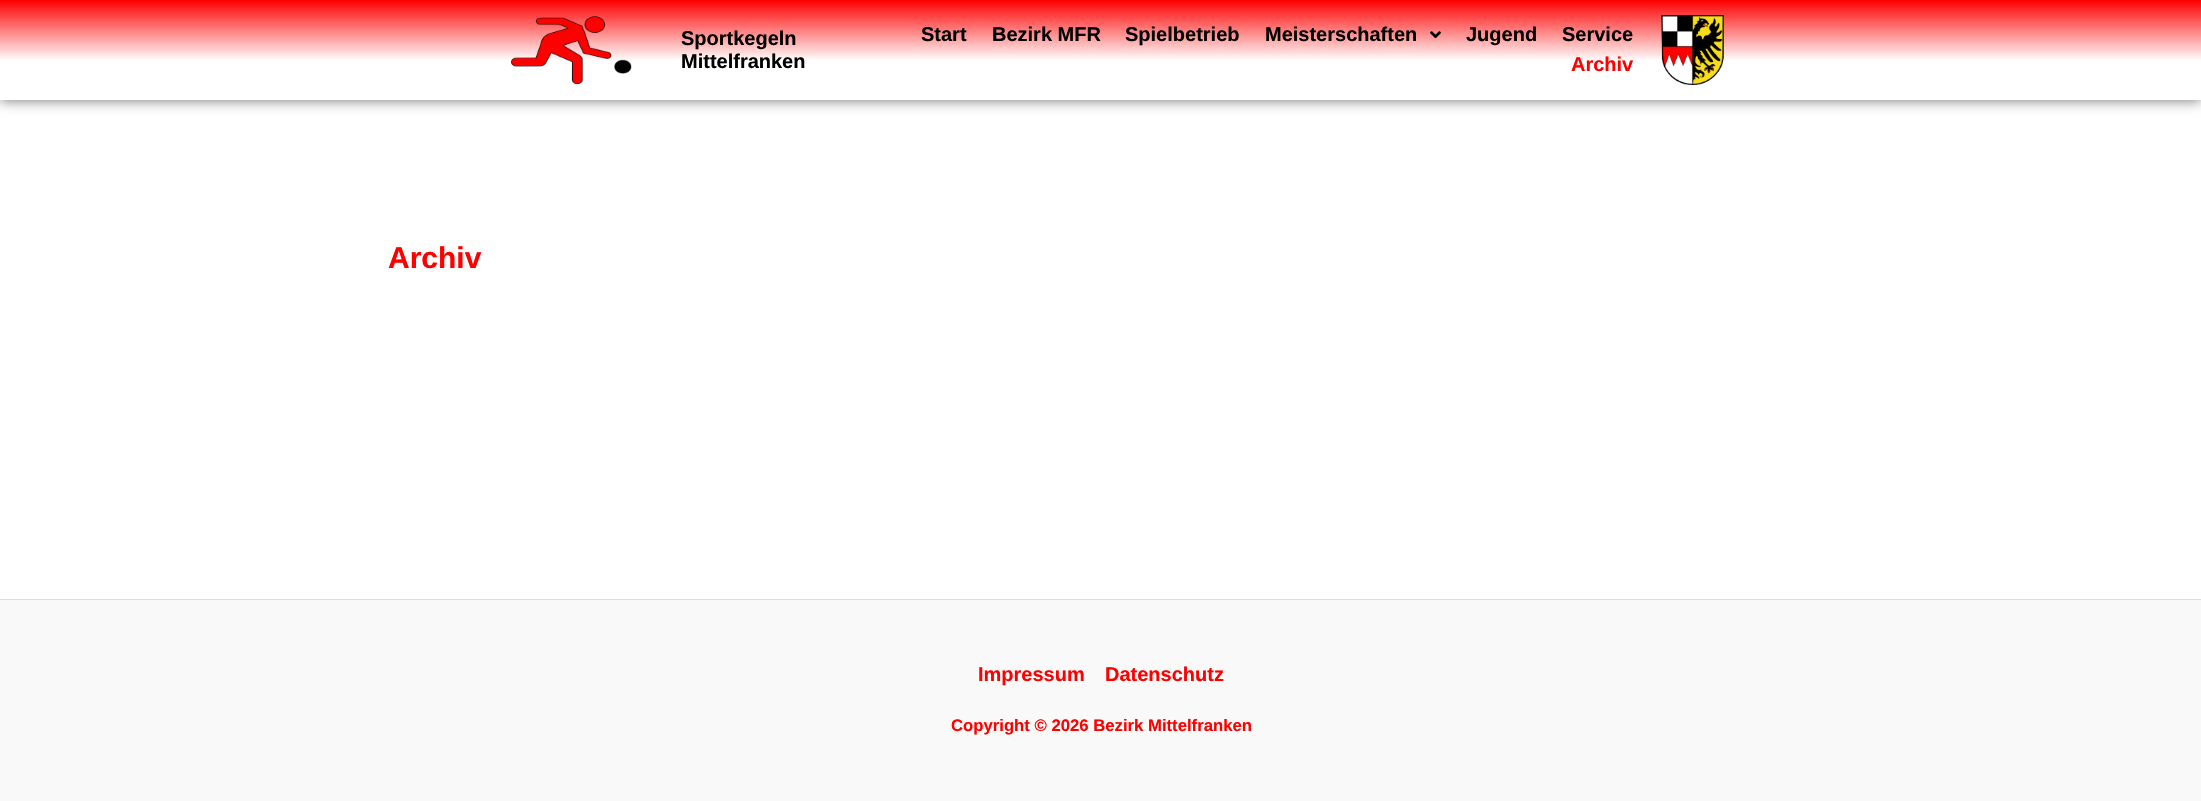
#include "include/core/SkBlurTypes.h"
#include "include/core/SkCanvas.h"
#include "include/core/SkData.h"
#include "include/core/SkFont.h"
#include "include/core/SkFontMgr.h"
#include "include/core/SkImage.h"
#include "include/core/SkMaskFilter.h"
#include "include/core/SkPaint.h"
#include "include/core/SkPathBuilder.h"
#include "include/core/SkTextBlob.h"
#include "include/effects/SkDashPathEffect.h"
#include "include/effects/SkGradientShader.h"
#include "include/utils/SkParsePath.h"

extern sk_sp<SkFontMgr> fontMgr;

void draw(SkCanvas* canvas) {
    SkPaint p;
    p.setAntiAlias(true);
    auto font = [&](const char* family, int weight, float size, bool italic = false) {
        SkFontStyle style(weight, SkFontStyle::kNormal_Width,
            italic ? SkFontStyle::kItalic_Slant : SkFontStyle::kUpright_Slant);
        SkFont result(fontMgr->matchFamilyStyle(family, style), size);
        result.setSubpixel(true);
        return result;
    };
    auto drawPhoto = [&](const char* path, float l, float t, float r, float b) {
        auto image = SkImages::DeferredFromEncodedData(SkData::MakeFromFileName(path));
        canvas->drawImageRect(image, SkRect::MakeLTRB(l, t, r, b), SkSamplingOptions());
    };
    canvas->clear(0xFFFFFFFF);
    p.setColor(0x80000000);
    p.setMaskFilter(SkMaskFilter::MakeBlur(kNormal_SkBlurStyle, 6));
    canvas->drawRect(SkRect::MakeLTRB(0, 1, 2201, 101), p);
    p.setMaskFilter(nullptr);
    {
        const SkColor colors[] = {0xFFFF0000, 0xFFFFFFFF};
        const float stops[] = {0, 0.61f};
        const SkPoint ends[] = {{1101, 0}, {1101, 100}};
        p.setShader(SkGradientShader::MakeLinear(ends, colors, stops, 2, SkTileMode::kClamp));
        p.setAlpha(255);
    }
    canvas->drawRect(SkRect::MakeLTRB(0, 0, 2201, 100), p);
    drawPhoto("media/1.png", 511, 16, 632, 85);
    auto font1 = font("Liberation Sans", 700, 20);
    p.setShader(nullptr);
    p.setColor(0xFF000000);
    {
        const struct { const char* s; float x, y; } items[] = {
            {"Sportkegeln", 681, 45},
            {"Mittelfranken", 681, 68},
            {"Start", 921, 41},
            {"Bezirk MFR", 992, 41},
            {"Spielbetrieb", 1125, 41},
            {"Meisterschaften", 1265, 41},
        };
        for (auto [s, x, y] : items) {
            canvas->drawString(s, x, y, font1, p);
        }
    }
    drawPhoto("media/2.png", 1430, 31, 1441, 39);
    canvas->drawString("Jugend", 1466, 41, font1, p);
    canvas->drawString("Service", 1562, 41, font1, p);
    p.setColor(0xFFFF0000);
    canvas->drawString("Archiv", 1571, 71, font1, p);
    drawPhoto("media/3.png", 1661, 15, 1724, 85);
    auto font2 = font("Liberation Sans", 700, 30);
    canvas->drawString("Archiv", 388, 268, font2, p);
    p.setColor(0xFFF9F9F9);
    canvas->drawRect(SkRect::MakeLTRB(0, 600, 2201, 801), p);
    p.setColor(0xFFFFD1BF);
    canvas->drawRect(SkRect::MakeLTRB(0, 599, 2201, 600), p);
    p.setColor(0xFFFF0000);
    canvas->drawString("Impressum", 978, 681, font1, p);
    canvas->drawString("Datenschutz", 1105, 681, font1, p);
    auto font3 = font("Liberation Sans", 700, 16.7f);
    canvas->drawString("Copyright © 2026 Bezirk Mittelfranken", 951, 731, font3, p);
}
